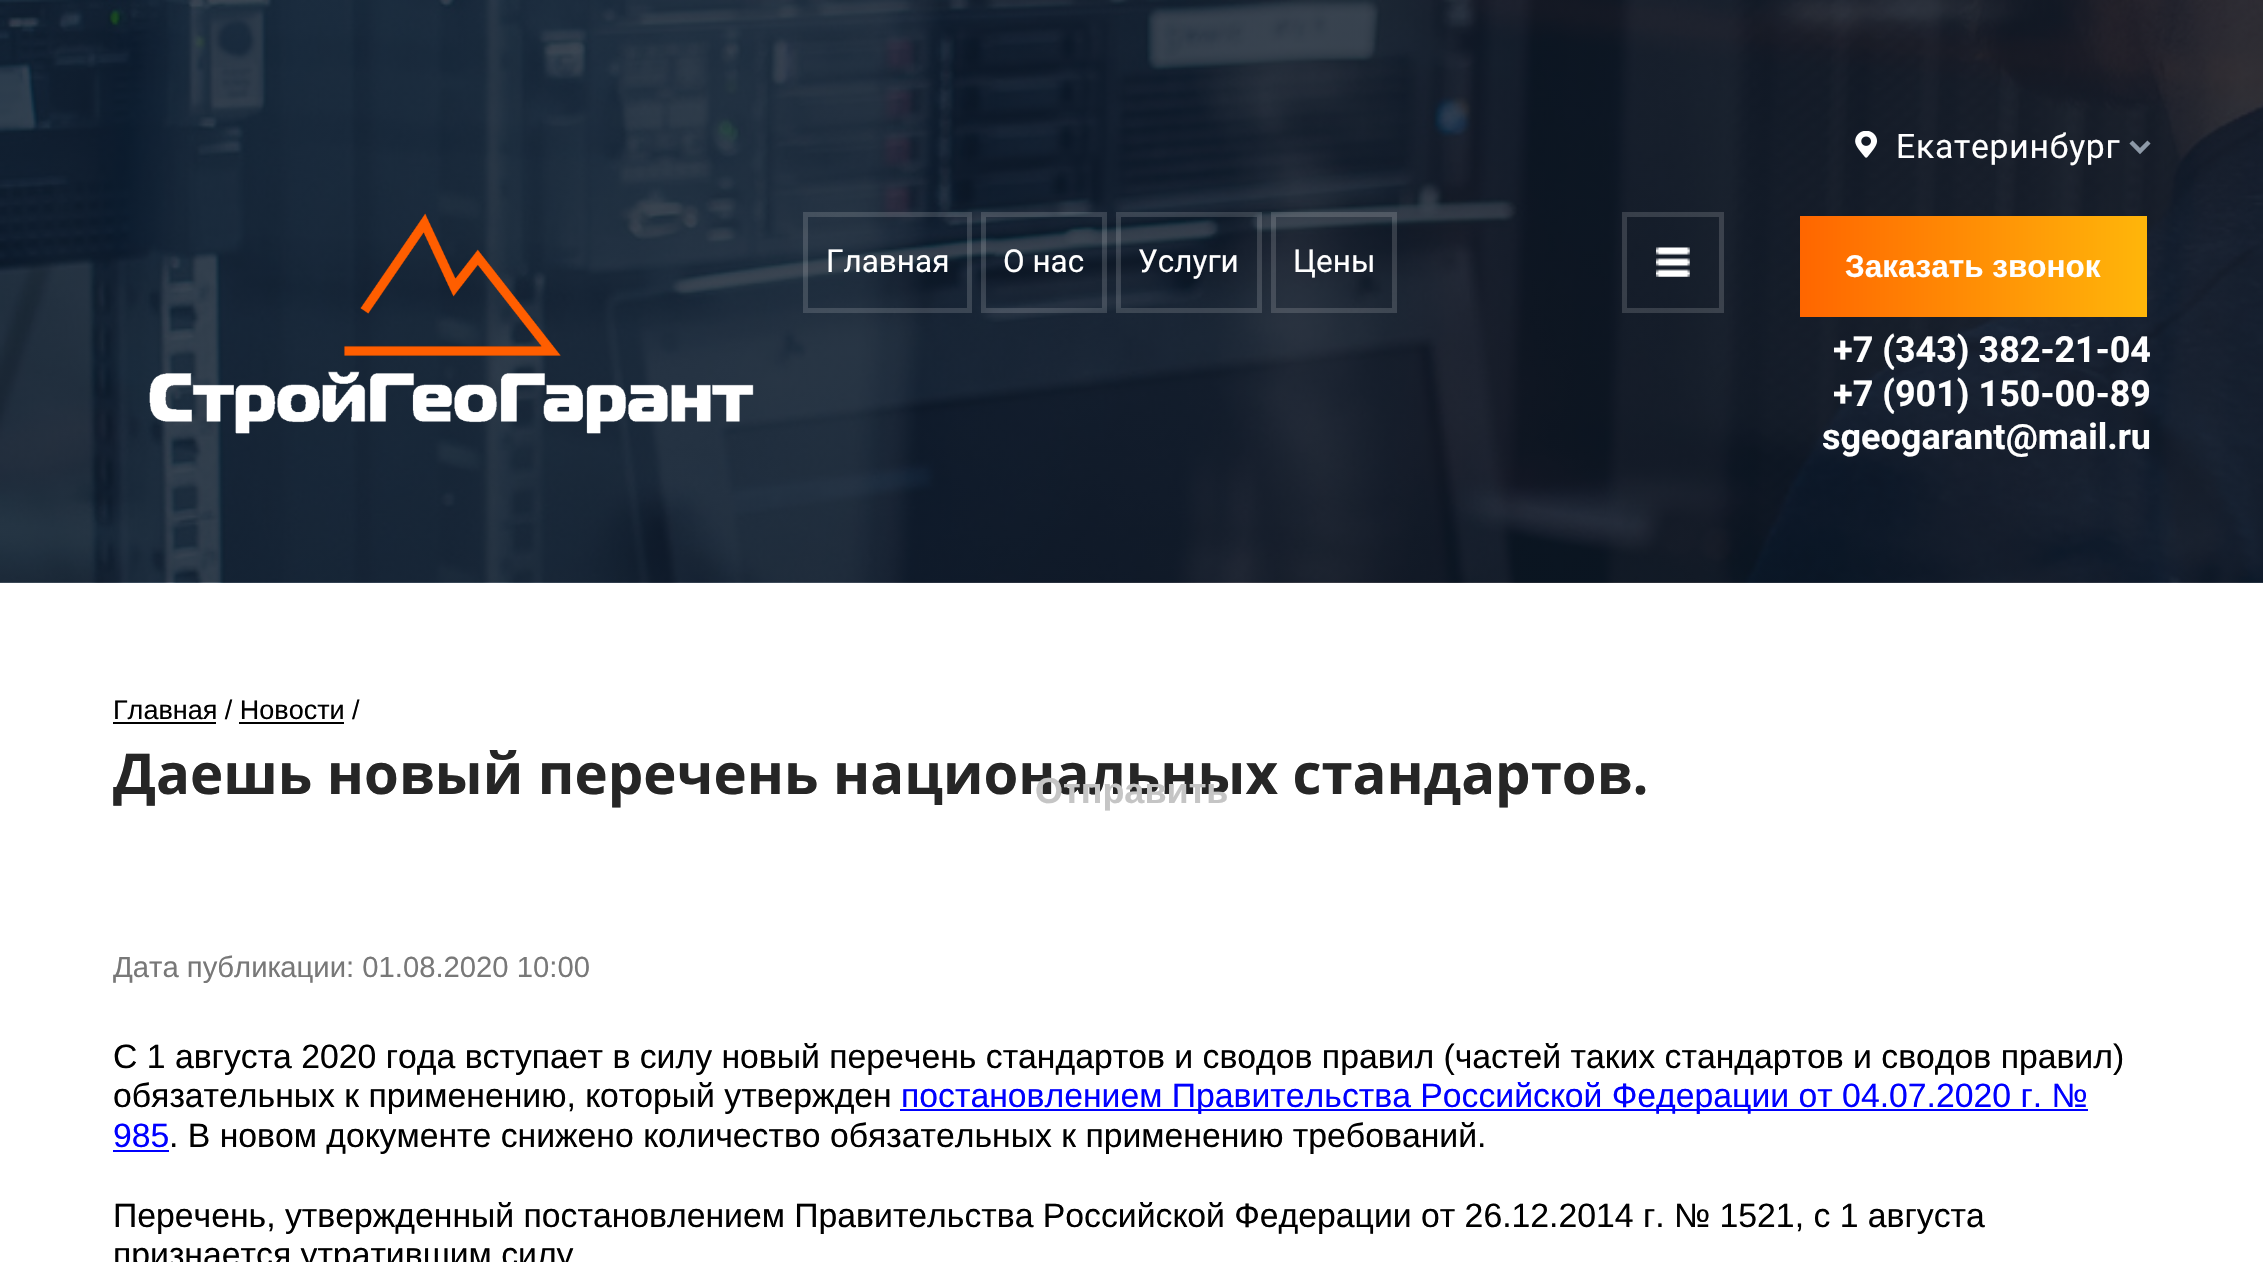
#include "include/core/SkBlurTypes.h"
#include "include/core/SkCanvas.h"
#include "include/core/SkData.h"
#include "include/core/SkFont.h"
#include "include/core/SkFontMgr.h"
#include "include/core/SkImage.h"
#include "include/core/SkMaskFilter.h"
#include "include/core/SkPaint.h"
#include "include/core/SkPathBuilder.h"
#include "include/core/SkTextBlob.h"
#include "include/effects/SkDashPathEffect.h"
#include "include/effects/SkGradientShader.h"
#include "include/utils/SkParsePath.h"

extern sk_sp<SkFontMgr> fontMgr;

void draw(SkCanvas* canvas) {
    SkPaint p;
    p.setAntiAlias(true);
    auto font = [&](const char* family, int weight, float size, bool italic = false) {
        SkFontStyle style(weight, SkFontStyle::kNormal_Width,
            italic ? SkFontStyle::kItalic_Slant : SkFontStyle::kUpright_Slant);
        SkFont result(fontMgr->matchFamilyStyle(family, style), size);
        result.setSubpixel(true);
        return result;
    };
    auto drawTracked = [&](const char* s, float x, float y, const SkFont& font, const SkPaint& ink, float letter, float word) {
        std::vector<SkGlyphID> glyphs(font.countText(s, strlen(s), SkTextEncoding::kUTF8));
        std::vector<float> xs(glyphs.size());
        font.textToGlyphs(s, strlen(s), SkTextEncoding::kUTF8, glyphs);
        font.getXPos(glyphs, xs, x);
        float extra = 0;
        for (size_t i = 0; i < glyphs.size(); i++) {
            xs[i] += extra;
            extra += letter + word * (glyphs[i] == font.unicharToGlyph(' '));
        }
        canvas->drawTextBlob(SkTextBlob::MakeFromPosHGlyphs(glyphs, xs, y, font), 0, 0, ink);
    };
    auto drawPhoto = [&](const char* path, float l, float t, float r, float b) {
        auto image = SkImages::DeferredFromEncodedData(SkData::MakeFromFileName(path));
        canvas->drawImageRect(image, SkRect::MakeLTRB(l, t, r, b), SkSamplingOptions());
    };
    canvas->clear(0xFFFFFFFF);
    drawPhoto("media/1.png", 0, 0, 2263, 583);
    drawPhoto("media/2.png", 149, 213, 754, 434);
    p.setStyle(SkPaint::kStroke_Style);
    p.setStrokeWidth(5);
    p.setColor(0x26FFFFFF);
    canvas->drawRect(SkRect::MakeLTRB(805.5f, 214.5f, 969.5f, 310.5f), p);
    auto font1 = font("Roboto", 400, 31.5f);
    p.setStyle(SkPaint::kFill_Style);
    p.setColor(0xFFFFFFFF);
    canvas->drawString("Главная", 826, 272, font1, p);
    p.setStyle(SkPaint::kStroke_Style);
    p.setColor(0x26FFFFFF);
    canvas->drawRect(SkRect::MakeLTRB(983.5f, 214.5f, 1104.5f, 310.5f), p);
    p.setStyle(SkPaint::kFill_Style);
    p.setColor(0xFFFFFFFF);
    canvas->drawString("О нас", 1003, 272, font1, p);
    p.setStyle(SkPaint::kStroke_Style);
    p.setColor(0x26FFFFFF);
    canvas->drawRect(SkRect::MakeLTRB(1118.5f, 214.5f, 1259.5f, 310.5f), p);
    p.setStyle(SkPaint::kFill_Style);
    p.setColor(0xFFFFFFFF);
    canvas->drawString("Услуги", 1138, 272, font1, p);
    p.setStyle(SkPaint::kStroke_Style);
    p.setColor(0x26FFFFFF);
    canvas->drawRect(SkRect::MakeLTRB(1273.5f, 214.5f, 1394.5f, 310.5f), p);
    p.setStyle(SkPaint::kFill_Style);
    p.setColor(0xFFFFFFFF);
    canvas->drawString("Цены", 1293, 272, font1, p);
    drawPhoto("media/3.png", 1656, 247, 1690, 277);
    p.setStyle(SkPaint::kStroke_Style);
    p.setColor(0x26FFFFFF);
    canvas->drawRect(SkRect::MakeLTRB(1624.5f, 214.5f, 1721.5f, 310.5f), p);
    drawPhoto("media/4.png", 1855, 131, 1878, 158);
    auto font2 = font("Roboto", 400, 33.75f);
    p.setStyle(SkPaint::kFill_Style);
    p.setColor(0xFFFFFFFF);
    drawTracked("Екатеринбург", 1896, 158, font2, p, 0.75f, 0);
    p.setStyle(SkPaint::kStroke_Style);
    p.setStrokeWidth(4.5f);
    p.setColor(0xFF8D99A7);
    canvas->drawPath(SkPathBuilder().moveTo(2149, 142).lineTo(2140, 151).lineTo(2131, 142).detach(), p);
    p.setStyle(SkPaint::kFill_Style);
    {
        const SkColor colors[] = {0xFFFF6600, 0xFFFFB60A};
        const float stops[] = {0, 1};
        const SkPoint ends[] = {{1800, 267}, {2147, 267}};
        p.setShader(SkGradientShader::MakeLinear(ends, colors, stops, 2, SkTileMode::kClamp));
        p.setAlpha(255);
    }
    canvas->drawRect(SkRect::MakeLTRB(1800, 216, 2147, 317), p);
    auto font3 = font("Liberation Sans", 700, 31.5f);
    p.setShader(nullptr);
    p.setColor(0xFFFFFFFF);
    canvas->drawString("Заказать звонок", 1845, 277, font3, p);
    auto font4 = font("Roboto", 700, 36);
    {
        const struct { const char* s; float x, y; } items[] = {
            {"+7 (343) 382-21-04", 1833, 362},
            {"+7 (901) 150-00-89", 1833, 406},
            {"sgeogarant@mail.ru", 1822, 449},
        };
        for (auto [s, x, y] : items) {
            canvas->drawString(s, x, y, font4, p);
        }
    }
    auto font5 = font("Liberation Sans", 400, 27);
    p.setColor(0xFF000000);
    canvas->drawString("Главная / Новости /", 113, 719, font5, p);
    canvas->drawRect(SkRect::MakeLTRB(113, 722, 216, 724), p);
    canvas->drawRect(SkRect::MakeLTRB(239, 722, 344, 724), p);
    auto font6 = font("Open Sans", 700, 56.25f);
    p.setColor(0xFF262626);
    canvas->drawString("Даешь новый перечень национальных стандартов.", 113, 794, font6, p);
    auto font7 = font("Liberation Sans", 400, 29.25f);
    p.setColor(0xFF787878);
    canvas->drawString("Дата публикации: 01.08.2020 10:00", 113, 977, font7, p);
    auto font8 = font("Liberation Sans", 400, 33.75f);
    p.setColor(0xFF000000);
    canvas->drawString("С 1 августа 2020 года вступает в силу новый перечень стандартов и сводов правил (частей таких стандартов и сводов правил)", 113, 1068, font8, p);
    canvas->drawString("обязательных к применению, который утвержден", 113, 1107, font8, p);
    p.setColor(0xFF0000FF);
    canvas->drawRect(SkRect::MakeLTRB(900, 1109, 2088, 1111), p);
    canvas->drawString("постановлением Правительства Российской Федерации от 04.07.2020 г. №", 901, 1107, font8, p);
    canvas->drawString("985", 113, 1147, font8, p);
    p.setColor(0xFF000000);
    canvas->drawString(". В новом документе снижено количество обязательных к применению требований.", 169, 1147, font8, p);
    p.setColor(0xFF0000FF);
    canvas->drawRect(SkRect::MakeLTRB(113, 1150, 169, 1152), p);
    p.setColor(0xFF000000);
    canvas->drawString("Перечень, утвержденный постановлением Правительства Российской Федерации от 26.12.2014 г. № 1521, с 1 августа", 113, 1227, font8, p);
    canvas->drawString("признается утратившим силу", 113, 1266, font8, p);
    auto font9 = font("Liberation Sans", 700, 36);
    p.setColor(0xFFC5C5C5);
    canvas->drawString("Отправить", 1035, 803, font9, p);
}
